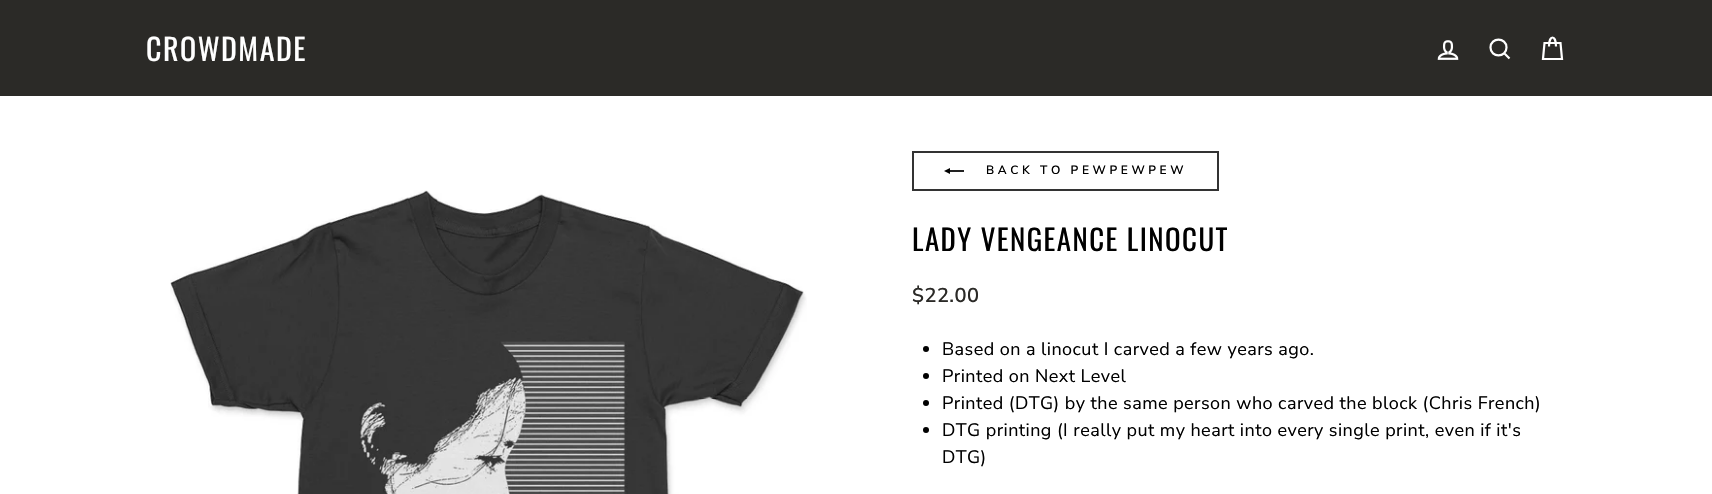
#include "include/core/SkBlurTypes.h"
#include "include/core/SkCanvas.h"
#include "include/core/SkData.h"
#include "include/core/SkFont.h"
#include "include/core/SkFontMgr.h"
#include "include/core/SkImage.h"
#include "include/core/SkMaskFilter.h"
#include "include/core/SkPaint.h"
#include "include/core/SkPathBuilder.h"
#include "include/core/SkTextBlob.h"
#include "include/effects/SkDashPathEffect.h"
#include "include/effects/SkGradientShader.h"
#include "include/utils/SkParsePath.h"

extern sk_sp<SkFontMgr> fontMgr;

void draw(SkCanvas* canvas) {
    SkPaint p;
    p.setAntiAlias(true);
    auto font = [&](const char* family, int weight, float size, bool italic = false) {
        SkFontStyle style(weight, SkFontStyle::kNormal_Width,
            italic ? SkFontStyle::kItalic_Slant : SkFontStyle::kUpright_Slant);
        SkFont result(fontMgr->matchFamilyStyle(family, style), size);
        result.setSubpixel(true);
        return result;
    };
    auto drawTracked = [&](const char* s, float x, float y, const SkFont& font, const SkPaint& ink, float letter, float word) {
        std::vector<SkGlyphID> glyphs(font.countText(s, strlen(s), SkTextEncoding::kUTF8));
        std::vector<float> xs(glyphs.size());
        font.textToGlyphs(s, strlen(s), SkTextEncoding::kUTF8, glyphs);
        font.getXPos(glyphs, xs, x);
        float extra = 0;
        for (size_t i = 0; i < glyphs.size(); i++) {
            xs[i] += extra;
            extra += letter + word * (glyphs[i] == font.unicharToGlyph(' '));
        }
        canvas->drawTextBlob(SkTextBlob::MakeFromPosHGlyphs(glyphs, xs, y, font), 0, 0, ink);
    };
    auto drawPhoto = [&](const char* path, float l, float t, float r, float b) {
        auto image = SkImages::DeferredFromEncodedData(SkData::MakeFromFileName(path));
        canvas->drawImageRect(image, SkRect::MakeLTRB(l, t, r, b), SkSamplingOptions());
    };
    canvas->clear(0xFFFFFFFF);
    p.setColor(0xFF2B2A27);
    canvas->drawRect(SkRect::MakeLTRB(0, 0, 1712, 96), p);
    auto font1 = font("Oswald", 400, 30);
    p.setColor(0xFFFFFFFF);
    drawTracked("CROWDMADE", 146, 61, font1, p, 1.5f, 0);
    drawPhoto("media/1.png", 1437, 40, 1459, 60);
    p.setStyle(SkPaint::kStroke_Style);
    p.setStrokeWidth(2.2f);
    canvas->drawPath(SkPathBuilder().moveTo(1506.5f, 47.5f).cubicTo(1506.5f, 58, 1490.5f, 58, 1490.5f, 47.5f).cubicTo(1490.5f, 37, 1506.5f, 37, 1506.5f, 47.5f).close().moveTo(1509.5f, 58.5f).lineTo(1504.5f, 53.5f).detach(), p);
    canvas->drawPath(SkPathBuilder().moveTo(1549, 46.5f).cubicTo(1549, 34.5f, 1556, 34.5f, 1556, 46.5f).moveTo(1544.5f, 43).lineTo(1560.5f, 43).lineTo(1562, 59).lineTo(1543, 59).close().detach(), p);
    drawPhoto("media/2.png", 170, 190, 807, 494);
    p.setStrokeWidth(2);
    p.setColor(0xFF333333);
    canvas->drawRect(SkRect::MakeLTRB(913, 152, 1218, 190), p);
    drawPhoto("media/3.png", 944, 168, 964, 174);
    auto font2 = font("Nunito Sans", 600, 12);
    p.setStyle(SkPaint::kFill_Style);
    p.setColor(0xFF000000);
    drawTracked("BACK TO PEWPEWPEW", 986, 174, font2, p, 3.6f, 0);
    auto font3 = font("Oswald", 400, 28.9f);
    drawTracked("LADY VENGEANCE LINOCUT", 912, 251, font3, p, 1.45f, 0);
    auto font4 = font("Nunito Sans", 600, 20);
    p.setColor(0xFF2B2A27);
    drawTracked("$22.00", 912, 302, font4, p, 0.45f, 0);
    p.setColor(0xFF000000);
    canvas->drawCircle(926, 349, 3, p);
    auto font5 = font("Nunito Sans", 400, 18);
    drawTracked("Based on a linocut I carved a few years ago.", 942, 355, font5, p, 0.45f, 0);
    canvas->drawCircle(926, 376, 3, p);
    drawTracked("Printed on Next Level", 942, 382, font5, p, 0.45f, 0);
    canvas->drawCircle(926, 403, 3, p);
    drawTracked("Printed (DTG) by the same person who carved the block (Chris French)", 942, 409, font5, p, 0.45f, 0);
    canvas->drawCircle(926, 430, 3, p);
    drawTracked("DTG printing (I really put my heart into every single print, even if it's", 942, 436, font5, p, 0.45f, 0);
    drawTracked("DTG)", 942, 463, font5, p, 0.45f, 0);
}
